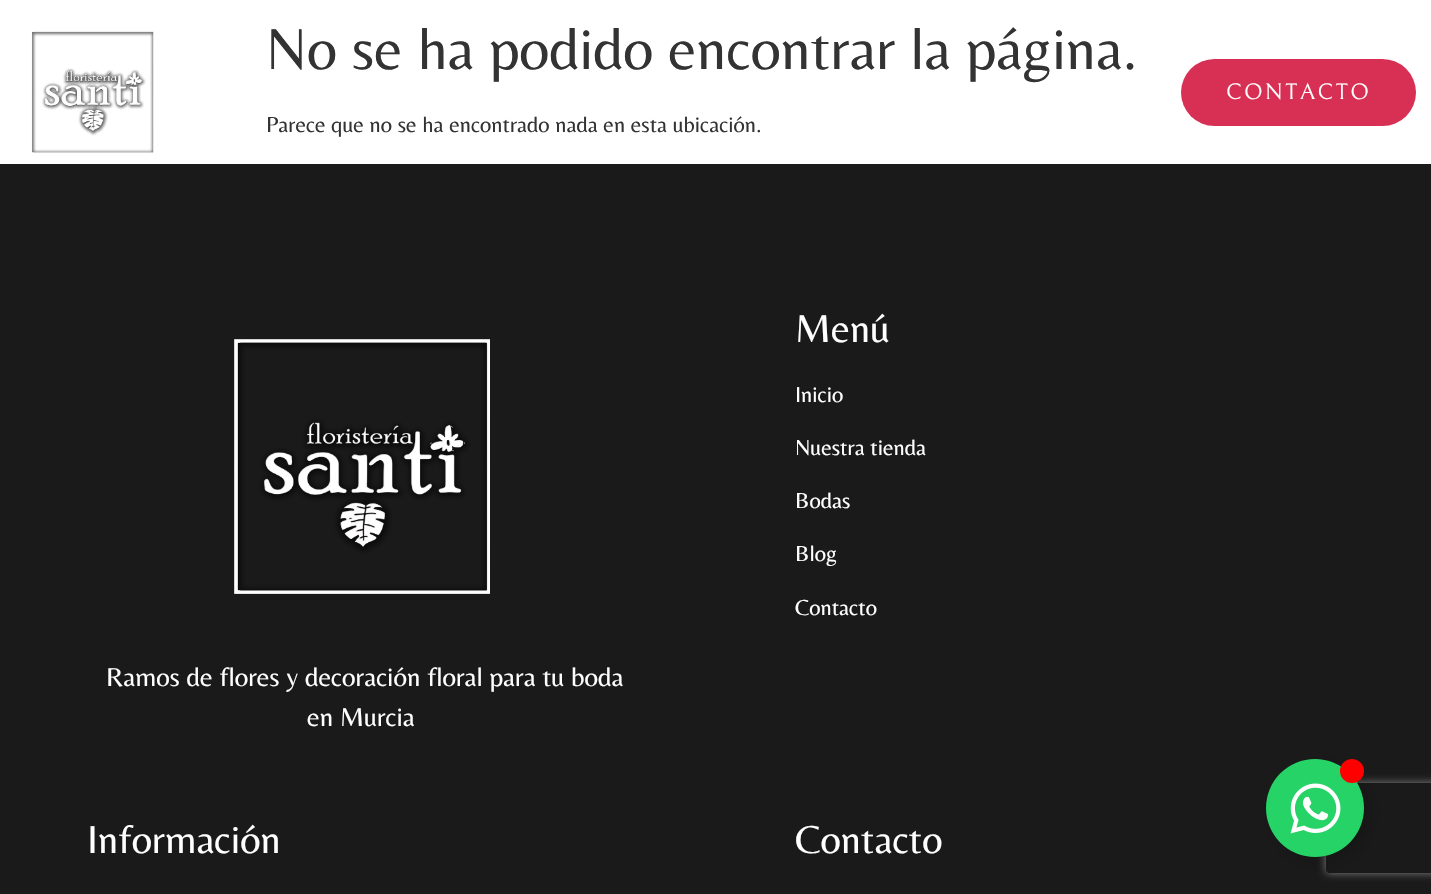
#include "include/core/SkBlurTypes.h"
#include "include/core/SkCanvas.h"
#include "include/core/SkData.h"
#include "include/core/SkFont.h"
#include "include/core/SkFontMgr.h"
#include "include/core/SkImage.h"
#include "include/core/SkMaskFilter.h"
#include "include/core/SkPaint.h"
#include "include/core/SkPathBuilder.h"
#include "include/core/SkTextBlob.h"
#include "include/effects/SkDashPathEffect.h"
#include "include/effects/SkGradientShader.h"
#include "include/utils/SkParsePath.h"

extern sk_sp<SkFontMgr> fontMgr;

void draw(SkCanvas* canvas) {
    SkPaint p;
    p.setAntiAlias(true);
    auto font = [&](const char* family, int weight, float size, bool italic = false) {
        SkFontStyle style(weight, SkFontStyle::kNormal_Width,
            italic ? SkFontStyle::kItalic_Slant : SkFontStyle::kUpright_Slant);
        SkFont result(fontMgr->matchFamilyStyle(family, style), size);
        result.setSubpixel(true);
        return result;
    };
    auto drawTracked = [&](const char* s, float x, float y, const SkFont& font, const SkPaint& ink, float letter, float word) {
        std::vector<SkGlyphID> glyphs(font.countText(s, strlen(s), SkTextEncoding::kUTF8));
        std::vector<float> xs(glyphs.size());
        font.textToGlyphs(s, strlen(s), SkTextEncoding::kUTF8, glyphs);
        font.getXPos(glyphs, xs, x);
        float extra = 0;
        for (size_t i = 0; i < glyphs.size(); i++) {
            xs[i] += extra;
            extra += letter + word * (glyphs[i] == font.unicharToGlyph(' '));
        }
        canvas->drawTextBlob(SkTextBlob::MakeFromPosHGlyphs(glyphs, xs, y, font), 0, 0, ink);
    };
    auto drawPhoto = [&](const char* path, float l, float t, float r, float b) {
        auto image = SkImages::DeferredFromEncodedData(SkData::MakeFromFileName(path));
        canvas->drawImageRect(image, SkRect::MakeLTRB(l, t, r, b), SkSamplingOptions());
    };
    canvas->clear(0xFFFFFFFF);
    auto font1 = font("Belleza", 400, 60);
    p.setColor(0xFF333333);
    canvas->drawString("No se ha podido encontrar la página.", 266, 69, font1, p);
    auto font2 = font("Belleza", 400, 22.5f);
    canvas->drawString("Parece que no se ha encontrado nada en esta ubicación.", 266, 132, font2, p);
    drawPhoto("media/1.png", 31, 31, 154, 153);
    p.setColor(0xFFD83054);
    canvas->drawRoundRect(SkRect::MakeLTRB(1181, 59, 1416, 126), 33.5f, 33.5f, p);
    auto font3 = font("Bellefair", 400, 22.5f);
    p.setColor(0xFFFFFFFF);
    drawTracked("CONTACTO", 1226, 99, font3, p, 2.25f, 0);
    p.setColor(0xFF1A1A1A);
    canvas->drawRect(SkRect::MakeLTRB(0, 164, 1431, 894), p);
    auto font4 = font("Belleza", 400, 40.5f);
    p.setColor(0xFFFFFFFF);
    canvas->drawString("Menú", 795, 342, font4, p);
    {
        const struct { const char* s; float x, y; } items[] = {
            {"Inicio", 795, 402},
            {"Nuestra tienda", 795, 455},
            {"Bodas", 795, 508},
            {"Blog", 795, 561},
            {"Contacto", 795, 615},
        };
        for (auto [s, x, y] : items) {
            canvas->drawString(s, x, y, font2, p);
        }
    }
    drawPhoto("media/2.png", 234, 339, 490, 594);
    auto font5 = font("Belleza", 400, 27);
    canvas->drawString("Ramos de flores y decoración floral para tu boda", 106, 686, font5, p);
    canvas->drawString("en Murcia", 307, 726, font5, p);
    canvas->drawString("Información", 87, 853, font4, p);
    canvas->drawString("Contacto", 795, 853, font4, p);
    p.setColor(0x26000000);
    p.setMaskFilter(SkMaskFilter::MakeBlur(kNormal_SkBlurStyle, 7.5f));
    canvas->drawRoundRect(SkRect::MakeLTRB(1272, 765, 1370, 863), 49, 49, p);
    p.setMaskFilter(nullptr);
    canvas->save();
    canvas->clipPath(SkPathBuilder(SkPathFillType::kEvenOdd).moveTo(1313, 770).lineTo(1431, 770).lineTo(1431, 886).lineTo(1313, 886).close().moveTo(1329, 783).lineTo(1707, 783).cubicTo(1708.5f, 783, 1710, 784.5f, 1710, 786).lineTo(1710, 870).cubicTo(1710, 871.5f, 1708.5f, 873, 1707, 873).lineTo(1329, 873).cubicTo(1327.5f, 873, 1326, 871.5f, 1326, 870).lineTo(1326, 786).cubicTo(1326, 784.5f, 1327.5f, 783, 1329, 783).close().detach(), true);
    p.setColor(0xFF808080);
    p.setMaskFilter(SkMaskFilter::MakeBlur(kNormal_SkBlurStyle, 4));
    canvas->drawRoundRect(SkRect::MakeLTRB(1326, 783, 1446, 873), 3, 3, p);
    p.setMaskFilter(nullptr);
    canvas->restore();
    p.setColor(0xFF25D366);
    canvas->drawCircle(1315, 808, 49, p);
    p.setColor(0xFFFF0000);
    canvas->drawCircle(1352, 771, 12, p);
    drawPhoto("media/3.png", 1290, 783, 1341, 834);
}
